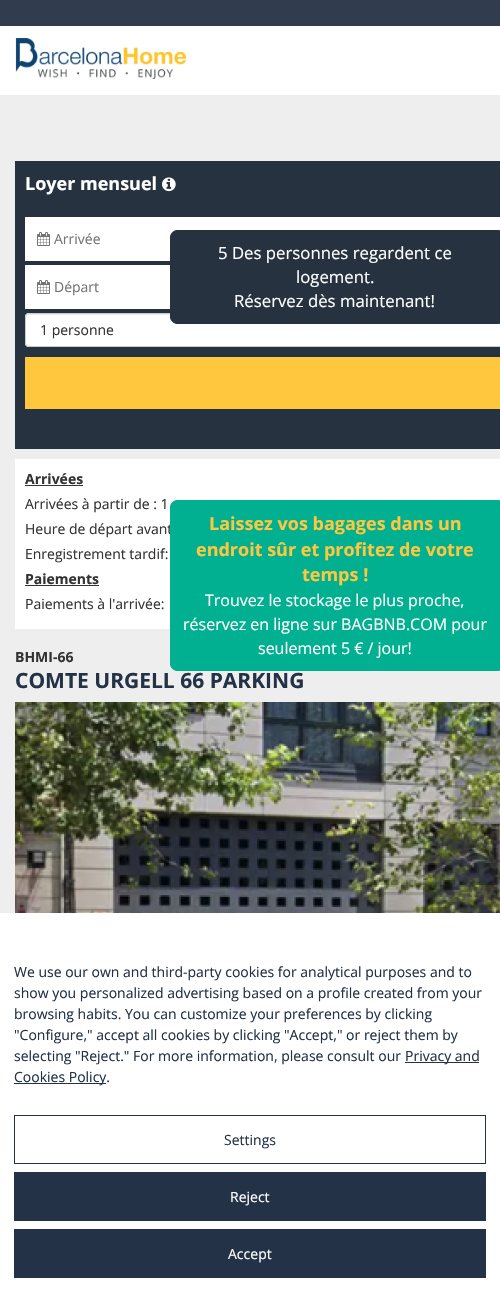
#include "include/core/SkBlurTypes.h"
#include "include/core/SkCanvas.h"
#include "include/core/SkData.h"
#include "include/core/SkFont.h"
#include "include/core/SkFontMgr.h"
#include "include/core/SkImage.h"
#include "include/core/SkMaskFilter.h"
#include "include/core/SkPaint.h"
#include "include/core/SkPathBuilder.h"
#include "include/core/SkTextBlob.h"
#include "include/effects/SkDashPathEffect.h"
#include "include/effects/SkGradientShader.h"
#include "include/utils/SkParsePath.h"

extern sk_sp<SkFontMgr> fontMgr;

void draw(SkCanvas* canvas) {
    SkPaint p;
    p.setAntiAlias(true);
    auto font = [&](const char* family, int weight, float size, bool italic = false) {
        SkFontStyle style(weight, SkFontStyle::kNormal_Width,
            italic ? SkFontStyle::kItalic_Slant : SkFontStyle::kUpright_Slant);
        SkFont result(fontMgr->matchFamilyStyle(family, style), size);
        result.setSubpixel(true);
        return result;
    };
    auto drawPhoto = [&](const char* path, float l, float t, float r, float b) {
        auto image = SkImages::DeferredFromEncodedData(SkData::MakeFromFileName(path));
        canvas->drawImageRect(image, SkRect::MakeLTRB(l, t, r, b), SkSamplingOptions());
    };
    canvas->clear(0xFFEEEEEE);
    p.setColor(0xFF313D4E);
    canvas->drawRect(SkRect::MakeLTRB(0, 0, 500, 26), p);
    p.setColor(0xFFFFFFFF);
    canvas->drawRect(SkRect::MakeLTRB(0, 26, 500, 95), p);
    drawPhoto("media/1.png", 15, 38, 187, 79);
    p.setColor(0xFF273241);
    canvas->drawRect(SkRect::MakeLTRB(15, 161, 500, 449), p);
    auto font1 = font("Open Sans", 700, 18);
    p.setColor(0xFFFFFFFF);
    canvas->drawString("Loyer mensuel", 25, 190, font1, p);
    drawPhoto("media/2.png", 162, 177, 176, 192);
    canvas->drawRect(SkRect::MakeLTRB(25, 217, 500, 261), p);
    drawPhoto("media/3.png", 37, 232, 50, 246);
    auto font2 = font("Open Sans", 400, 14);
    p.setColor(0xFF757575);
    canvas->drawString("Arrivée", 54, 244, font2, p);
    p.setColor(0xFFFFFFFF);
    canvas->drawRect(SkRect::MakeLTRB(25, 265, 170, 309), p);
    drawPhoto("media/3.png", 37, 280, 50, 294);
    p.setColor(0xFF757575);
    canvas->drawString("Départ", 54, 292, font2, p);
    p.setColor(0xFFFFFFFF);
    canvas->drawRoundRect(SkRect::MakeLTRB(25, 313, 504, 347), 4, 4, p);
    p.setColor(0xFFECECEC);
    canvas->drawPath(SkPathBuilder().moveTo(29, 315).lineTo(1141, 315).cubicTo(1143, 315, 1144, 316, 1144, 318).lineTo(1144, 317).cubicTo(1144, 315, 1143, 314, 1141, 314).lineTo(29, 314).cubicTo(27, 314, 26, 315, 26, 317).lineTo(26, 318).cubicTo(26, 316, 27, 315, 29, 315).close().detach(), p);
    p.setStyle(SkPaint::kStroke_Style);
    p.setStrokeWidth(1);
    p.setColor(0xFFCCCCCC);
    canvas->drawRoundRect(SkRect::MakeLTRB(25.5f, 313.5f, 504.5f, 346.5f), 3.5f, 3.5f, p);
    p.setStyle(SkPaint::kFill_Style);
    p.setColor(0xFF333333);
    canvas->drawString("1 personne", 40, 335, font2, p);
    p.setColor(0xFFFEC73E);
    canvas->drawRect(SkRect::MakeLTRB(25, 357, 500, 409), p);
    p.setColor(0xFFFFFFFF);
    canvas->drawRect(SkRect::MakeLTRB(15, 459, 500, 629), p);
    auto font3 = font("Open Sans", 700, 14);
    p.setColor(0xFF333333);
    canvas->drawString("Arrivées", 25, 484, font3, p);
    canvas->drawRect(SkRect::MakeLTRB(25, 485, 83, 486), p);
    {
        const struct { const char* s; float x, y; } items[] = {
            {"Arrivées à partir de : 1", 25, 509},
            {"Heure de départ avant", 25, 534},
            {"Enregistrement tardif:", 25, 559},
        };
        for (auto [s, x, y] : items) {
            canvas->drawString(s, x, y, font2, p);
        }
    }
    canvas->drawString("Paiements", 25, 584, font3, p);
    canvas->drawRect(SkRect::MakeLTRB(25, 585, 99, 586), p);
    canvas->drawString("Paiements à l'arrivée:", 25, 609, font2, p);
    canvas->drawString("BHMI-66", 15, 662, font3, p);
    auto font4 = font("Open Sans", 700, 21);
    p.setColor(0xFF233246);
    canvas->drawString("COMTE URGELL 66 PARKING", 15, 688, font4, p);
    drawPhoto("media/4.png", 15, 702, 500, 913);
    p.setColor(0xFF273241);
    canvas->drawPath(SkPathBuilder().moveTo(177, 230.5f).lineTo(499.5f, 230.5f).lineTo(499.5f, 323.5f).lineTo(177, 323.5f).cubicTo(173.5f, 323.5f, 170.5f, 320.5f, 170.5f, 317).lineTo(170.5f, 237).cubicTo(170.5f, 233.5f, 173.5f, 230.5f, 177, 230.5f).close().detach(), p);
    p.setStyle(SkPaint::kStroke_Style);
    canvas->drawPath(SkPathBuilder().moveTo(177, 230.5f).lineTo(499.5f, 230.5f).lineTo(499.5f, 323.5f).lineTo(177, 323.5f).cubicTo(173.5f, 323.5f, 170.5f, 320.5f, 170.5f, 317).lineTo(170.5f, 237).cubicTo(170.5f, 233.5f, 173.5f, 230.5f, 177, 230.5f).close().detach(), p);
    auto font5 = font("Open Sans", 400, 16.75f);
    p.setStyle(SkPaint::kFill_Style);
    p.setColor(0xFFFFFFFF);
    {
        const struct { const char* s; float x, y; } items[] = {
            {"5 Des personnes regardent ce", 218, 259},
            {"logement.", 296, 283},
            {"Réservez dès maintenant!", 234, 307},
        };
        for (auto [s, x, y] : items) {
            canvas->drawString(s, x, y, font5, p);
        }
    }
    p.setColor(0xFF00B091);
    canvas->drawPath(SkPathBuilder().moveTo(177, 500.5f).lineTo(499.5f, 500.5f).lineTo(499.5f, 670.5f).lineTo(177, 670.5f).cubicTo(173.5f, 670.5f, 170.5f, 667.5f, 170.5f, 664).lineTo(170.5f, 507).cubicTo(170.5f, 503.5f, 173.5f, 500.5f, 177, 500.5f).close().detach(), p);
    p.setStyle(SkPaint::kStroke_Style);
    canvas->drawPath(SkPathBuilder().moveTo(177, 500.5f).lineTo(499.5f, 500.5f).lineTo(499.5f, 670.5f).lineTo(177, 670.5f).cubicTo(173.5f, 670.5f, 170.5f, 667.5f, 170.5f, 664).lineTo(170.5f, 507).cubicTo(170.5f, 503.5f, 173.5f, 500.5f, 177, 500.5f).close().detach(), p);
    p.setStyle(SkPaint::kFill_Style);
    p.setColor(0xFFFEC73E);
    {
        const struct { const char* s; float x, y; } items[] = {
            {"Laissez vos bagages dans un", 209, 530},
            {"endroit sûr et profitez de votre", 196, 556},
            {"temps !", 302, 581},
        };
        for (auto [s, x, y] : items) {
            canvas->drawString(s, x, y, font1, p);
        }
    }
    auto font6 = font("Open Sans", 400, 16);
    p.setColor(0xFFFFFFFF);
    {
        const struct { const char* s; float x, y; } items[] = {
            {"Trouvez le stockage le plus proche,", 205, 606},
            {"réservez en ligne sur BAGBNB.COM pour", 183, 630},
            {"seulement 5 € / jour!", 258, 654},
        };
        for (auto [s, x, y] : items) {
            canvas->drawString(s, x, y, font6, p);
        }
    }
    canvas->drawRect(SkRect::MakeLTRB(0, 913, 500, 1306), p);
    p.setColor(0xFF233246);
    {
        const struct { const char* s; float x, y; } items[] = {
            {"We use our own and third-party cookies for analytical purposes and to", 14, 977},
            {"show you personalized advertising based on a profile created from your", 14, 998},
            {"browsing habits. You can customize your preferences by clicking", 14, 1019},
            {"\"Configure,\" accept all cookies by clicking \"Accept,\" or reject them by", 14, 1040},
            {"selecting \"Reject.\" For more information, please consult our", 14, 1061},
        };
        for (auto [s, x, y] : items) {
            canvas->drawString(s, x, y, font2, p);
        }
    }
    canvas->drawRect(SkRect::MakeLTRB(405, 1062, 479, 1063), p);
    canvas->drawString("Privacy and", 405, 1061, font2, p);
    canvas->drawRect(SkRect::MakeLTRB(14, 1083, 106, 1084), p);
    canvas->drawString("Cookies Policy.", 14, 1082, font2, p);
    p.setStyle(SkPaint::kStroke_Style);
    canvas->drawRect(SkRect::MakeLTRB(14.5f, 1115.5f, 485.5f, 1163.5f), p);
    p.setStyle(SkPaint::kFill_Style);
    canvas->drawString("Settings", 224, 1145, font2, p);
    canvas->drawRect(SkRect::MakeLTRB(14, 1172, 486, 1221), p);
    p.setColor(0xFFFFFFFF);
    canvas->drawString("Reject", 230, 1202, font2, p);
    p.setColor(0xFF233246);
    canvas->drawRect(SkRect::MakeLTRB(14, 1229, 486, 1278), p);
    p.setColor(0xFFFFFFFF);
    canvas->drawString("Accept", 228, 1259, font2, p);
}
